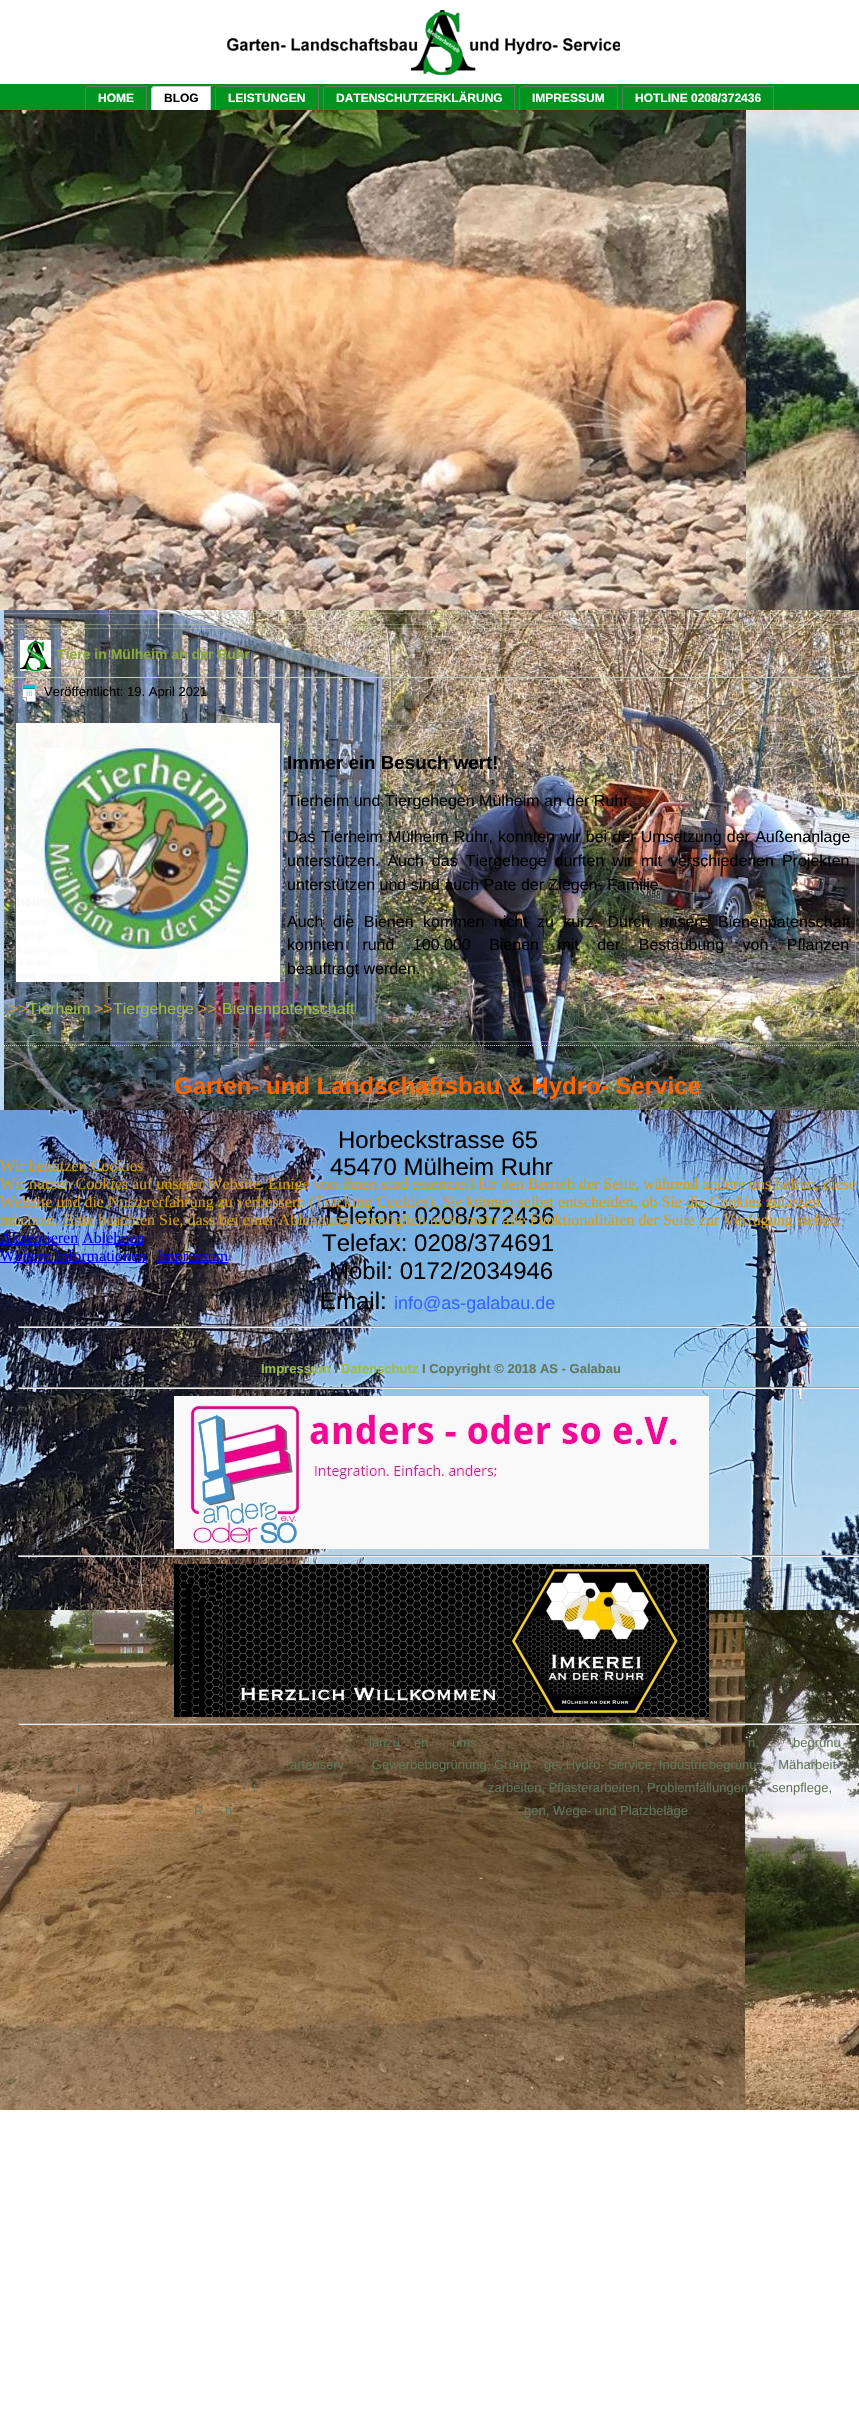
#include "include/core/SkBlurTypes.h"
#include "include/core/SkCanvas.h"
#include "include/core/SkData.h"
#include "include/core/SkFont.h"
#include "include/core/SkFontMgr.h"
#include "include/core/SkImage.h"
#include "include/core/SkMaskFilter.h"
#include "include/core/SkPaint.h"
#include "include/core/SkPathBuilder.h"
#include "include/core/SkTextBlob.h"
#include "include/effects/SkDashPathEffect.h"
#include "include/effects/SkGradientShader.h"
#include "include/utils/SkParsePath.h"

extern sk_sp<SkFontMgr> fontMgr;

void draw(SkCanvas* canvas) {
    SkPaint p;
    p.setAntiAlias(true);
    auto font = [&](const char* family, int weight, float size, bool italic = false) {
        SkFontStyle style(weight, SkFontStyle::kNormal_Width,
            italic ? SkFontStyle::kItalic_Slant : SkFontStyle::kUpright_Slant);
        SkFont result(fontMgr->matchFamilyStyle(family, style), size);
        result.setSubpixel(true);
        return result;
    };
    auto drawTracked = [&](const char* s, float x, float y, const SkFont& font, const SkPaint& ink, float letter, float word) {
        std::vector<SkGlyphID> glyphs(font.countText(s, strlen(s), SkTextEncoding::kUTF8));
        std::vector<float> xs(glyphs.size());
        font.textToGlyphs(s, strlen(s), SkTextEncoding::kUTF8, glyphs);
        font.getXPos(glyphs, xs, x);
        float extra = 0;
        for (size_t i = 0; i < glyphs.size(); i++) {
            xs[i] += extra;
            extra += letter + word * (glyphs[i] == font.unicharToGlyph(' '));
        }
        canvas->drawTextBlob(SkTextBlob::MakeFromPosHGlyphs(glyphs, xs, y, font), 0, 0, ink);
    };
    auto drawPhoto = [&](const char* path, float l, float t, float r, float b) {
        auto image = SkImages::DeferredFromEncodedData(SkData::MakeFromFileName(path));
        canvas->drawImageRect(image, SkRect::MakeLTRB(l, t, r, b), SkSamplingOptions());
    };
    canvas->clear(0xFFFFFFFF);
    drawPhoto("media/1.png", 227, 10, 620, 75);
    p.setColor(0xFF019320);
    canvas->drawRect(SkRect::MakeLTRB(0, 84, 859, 110), p);
    p.setColor(0xFF657A5C);
    canvas->drawPath(SkPathBuilder(SkPathFillType::kEvenOdd).moveTo(89, 86).lineTo(147, 86).lineTo(147, 110).lineTo(85, 110).lineTo(85, 90).cubicTo(85, 88, 87, 86, 89, 86).close().moveTo(89, 87).lineTo(146, 87).lineTo(146, 110).lineTo(86, 110).lineTo(86, 90).cubicTo(86, 88, 87, 87, 89, 87).close().detach(), p);
    auto font1 = font("Liberation Sans", 700, 12);
    p.setColor(0xFFFFFFFF);
    canvas->drawString("HOME", 98, 102, font1, p);
    canvas->drawPath(SkPathBuilder().moveTo(155, 86).lineTo(211, 86).lineTo(211, 110).lineTo(151, 110).lineTo(151, 90).cubicTo(151, 88, 153, 86, 155, 86).close().detach(), p);
    p.setColor(0xFFC3CFBF);
    canvas->drawPath(SkPathBuilder(SkPathFillType::kEvenOdd).moveTo(155, 86).lineTo(211, 86).lineTo(211, 110).lineTo(151, 110).lineTo(151, 90).cubicTo(151, 88, 153, 86, 155, 86).close().moveTo(155, 87).lineTo(210, 87).lineTo(210, 110).lineTo(152, 110).lineTo(152, 90).cubicTo(152, 88, 153, 87, 155, 87).close().detach(), p);
    p.setColor(0xFF000000);
    canvas->drawString("BLOG", 164, 102, font1, p);
    p.setColor(0xFF657A5C);
    canvas->drawPath(SkPathBuilder(SkPathFillType::kEvenOdd).moveTo(219, 86).lineTo(319, 86).lineTo(319, 110).lineTo(215, 110).lineTo(215, 90).cubicTo(215, 88, 217, 86, 219, 86).close().moveTo(219, 87).lineTo(318, 87).lineTo(318, 110).lineTo(216, 110).lineTo(216, 90).cubicTo(216, 88, 217, 87, 219, 87).close().detach(), p);
    p.setColor(0xFFFFFFFF);
    canvas->drawString("LEISTUNGEN", 228, 102, font1, p);
    p.setColor(0xFF657A5C);
    canvas->drawPath(SkPathBuilder(SkPathFillType::kEvenOdd).moveTo(327, 86).lineTo(515, 86).lineTo(515, 110).lineTo(323, 110).lineTo(323, 90).cubicTo(323, 88, 325, 86, 327, 86).close().moveTo(327, 87).lineTo(514, 87).lineTo(514, 110).lineTo(324, 110).lineTo(324, 90).cubicTo(324, 88, 325, 87, 327, 87).close().detach(), p);
    p.setColor(0xFFFFFFFF);
    canvas->drawString("DATENSCHUTZERKLÄRUNG", 336, 102, font1, p);
    p.setColor(0xFF657A5C);
    canvas->drawPath(SkPathBuilder(SkPathFillType::kEvenOdd).moveTo(523, 86).lineTo(618, 86).lineTo(618, 110).lineTo(519, 110).lineTo(519, 90).cubicTo(519, 88, 521, 86, 523, 86).close().moveTo(523, 87).lineTo(617, 87).lineTo(617, 110).lineTo(520, 110).lineTo(520, 90).cubicTo(520, 88, 521, 87, 523, 87).close().detach(), p);
    p.setColor(0xFFFFFFFF);
    canvas->drawString("IMPRESSUM", 532, 102, font1, p);
    p.setColor(0xFF657A5C);
    canvas->drawPath(SkPathBuilder(SkPathFillType::kEvenOdd).moveTo(626, 86).lineTo(774, 86).lineTo(774, 110).lineTo(622, 110).lineTo(622, 90).cubicTo(622, 88, 624, 86, 626, 86).close().moveTo(626, 87).lineTo(773, 87).lineTo(773, 110).lineTo(623, 110).lineTo(623, 90).cubicTo(623, 88, 624, 87, 626, 87).close().detach(), p);
    p.setColor(0xFFFFFFFF);
    canvas->drawString("HOTLINE 0208/372436", 635, 102, font1, p);
    drawPhoto("media/2.png", 0, 110, 859, 610);
    drawPhoto("media/3.png", 0, 610, 859, 1110);
    drawPhoto("media/4.png", 0, 1110, 859, 1610);
    drawPhoto("media/5.png", 0, 1610, 859, 2110);
    p.setStyle(SkPaint::kStroke_Style);
    p.setStrokeWidth(1);
    p.setColor(0x66C7D2AD);
    canvas->drawRect(SkRect::MakeLTRB(3.5f, 613.5f, 855.5f, 624.5f), p);
    canvas->drawRect(SkRect::MakeLTRB(3.5f, 628.5f, 855.5f, 1041.5f), p);
    p.setStyle(SkPaint::kFill_Style);
    p.setColor(0xFFC3CFBF);
    canvas->drawRect(SkRect::MakeLTRB(9, 677, 850, 678), p);
    drawPhoto("media/6.png", 20, 640, 51, 671);
    auto font2 = font("Liberation Sans", 700, 14);
    p.setColor(0xFF8DAB3B);
    canvas->drawString("Tiere in Mülheim an der Ruhr", 57, 659, font2, p);
    drawPhoto("media/7.png", 22, 684, 36, 702);
    auto font3 = font("Liberation Sans", 400, 13);
    p.setColor(0xFF000000);
    canvas->drawString("Veröffentlicht: 19. April 2021", 44, 696, font3, p);
    drawPhoto("media/8.png", 16, 723, 280, 982);
    auto font4 = font("Liberation Sans", 700, 18.75f);
    canvas->drawString("Immer ein Besuch wert!", 287, 769, font4, p);
    auto font5 = font("Liberation Sans", 400, 16);
    canvas->drawString("Tierheim und Tiergehegen Mülheim an der Ruhr.", 287, 806, font5, p);
    drawTracked("Das Tierheim Mülheim Ruhr, konnten wir bei der Umsetzung der Außenanlage", 287, 842, font5, p, 0, 0.75f);
    drawTracked("unterstützen. Auch das Tiergehege durften wir mit verschiedenen Projekten", 287, 866, font5, p, 0, 3.5f);
    canvas->drawString("unterstützen und sind auch Pate der Ziegen- Familie.", 287, 890, font5, p);
    drawTracked("Auch die Bienen kommen nicht zu kurz. Durch unsere Bienenpatenschaft", 287, 927, font5, p, 0, 5);
    drawTracked("konnten rund 100.000 Bienen mit der Bestäubung von Pflanzen", 287, 950, font5, p, 0, 14);
    canvas->drawString("beauftragt werden.", 287, 974, font5, p);
    p.setColor(0xFFD49D1C);
    canvas->drawString(">>", 9, 1014, font5, p);
    p.setColor(0xFF9DBE41);
    canvas->drawString("Tierheim", 28, 1014, font5, p);
    p.setColor(0xFFD49D1C);
    canvas->drawString(">>", 94, 1014, font5, p);
    p.setColor(0xFF9DBE41);
    canvas->drawString("Tiergehege", 113, 1014, font5, p);
    p.setColor(0xFFD49D1C);
    canvas->drawString(">>", 198, 1014, font5, p);
    p.setColor(0xFF9DBE41);
    canvas->drawString("Bienenpatenschaft", 222, 1014, font5, p);
    p.setStyle(SkPaint::kStroke_Style);
    p.setColor(0xFFC3CFBF);
    p.setPathEffect(SkDashPathEffect::Make({{1, 1}}, 0));
    canvas->drawPath(SkPathBuilder().moveTo(0, 1045.5f).lineTo(859, 1045.5f).detach(), p);
    p.setPathEffect(nullptr);
    drawPhoto("media/9.png", 428, 1057, 435, 1064);
    auto font6 = font("Liberation Sans", 700, 24);
    p.setStyle(SkPaint::kFill_Style);
    p.setColor(0xFFFF6600);
    canvas->drawString("Garten- und Landschaftsbau & Hydro- Service", 174, 1094, font6, p);
    auto font7 = font("Liberation Sans", 400, 24);
    p.setColor(0xFF000000);
    {
        const struct { const char* s; float x, y; } items[] = {
            {"Horbeckstrasse 65", 338, 1148},
            {"45470 Mülheim Ruhr", 330, 1175},
            {"Telefon: 0208/372436", 321, 1224},
            {"Telefax: 0208/374691", 322, 1251},
            {"Mobil: 0172/2034946", 329, 1279},
            {"Email:", 320, 1309},
        };
        for (auto [s, x, y] : items) {
            canvas->drawString(s, x, y, font7, p);
        }
    }
    auto font8 = font("Liberation Sans", 400, 18);
    p.setColor(0xFF3366FF);
    canvas->drawString("info@as-galabau.de", 394, 1309, font8, p);
    {
        const struct { float l, t, r, b; SkColor color; } items[] = {
            {18, 1326, 859, 1327, 0xFF9F9F9F},
            {18, 1327, 859, 1328, 0xFFEEEEEE},
            {18, 1326, 19, 1328, 0xFF9F9F9F},
        };
        for (auto [l, t, r, b, color] : items) {
            p.setColor(color);
            canvas->drawRect(SkRect::MakeLTRB(l, t, r, b), p);
        }
    }
    auto font9 = font("Liberation Sans", 700, 13);
    p.setColor(0xFF9DBE41);
    canvas->drawString("Impressum", 261, 1373, font9, p);
    p.setColor(0xFF62775A);
    canvas->drawString("I", 334, 1373, font9, p);
    p.setColor(0xFF9DBE41);
    canvas->drawString("Datenschutz", 341, 1373, font9, p);
    p.setColor(0xFF62775A);
    canvas->drawString("I Copyright © 2018 AS - Galabau", 422, 1373, font9, p);
    {
        const struct { float l, t, r, b; SkColor color; } items[] = {
            {18, 1387, 859, 1388, 0xFF9F9F9F},
            {18, 1388, 859, 1389, 0xFFEEEEEE},
            {18, 1387, 19, 1389, 0xFF9F9F9F},
        };
        for (auto [l, t, r, b, color] : items) {
            p.setColor(color);
            canvas->drawRect(SkRect::MakeLTRB(l, t, r, b), p);
        }
    }
    drawPhoto("media/10.png", 174, 1396, 709, 1549);
    {
        const struct { float l, t, r, b; SkColor color; } items[] = {
            {18, 1555, 859, 1556, 0xFF9F9F9F},
            {18, 1556, 859, 1557, 0xFFEEEEEE},
            {18, 1555, 19, 1557, 0xFF9F9F9F},
        };
        for (auto [l, t, r, b, color] : items) {
            p.setColor(color);
            canvas->drawRect(SkRect::MakeLTRB(l, t, r, b), p);
        }
    }
    drawPhoto("media/11.png", 174, 1564, 709, 1717);
    {
        const struct { float l, t, r, b; SkColor color; } items[] = {
            {18, 1723, 859, 1724, 0xFF9F9F9F},
            {18, 1724, 859, 1725, 0xFFEEEEEE},
            {18, 1723, 19, 1725, 0xFF9F9F9F},
        };
        for (auto [l, t, r, b, color] : items) {
            p.setColor(color);
            canvas->drawRect(SkRect::MakeLTRB(l, t, r, b), p);
        }
    }
    p.setColor(0xFF62775A);
    {
        const struct { const char* s; float x, y; } items[] = {
            {",", 317, 1747},
            {"lanzu", 369, 1747},
            {"en", 414, 1747},
            {"ums", 452, 1747},
            {",", 507, 1747},
            {"l", 562, 1747},
            {"f", 632, 1747},
            {"c", 705, 1747},
            {"n,", 748, 1747},
            {"begrünu", 793, 1747},
            {",", 855, 1747},
            {"artenserv", 290, 1769},
            {",  Gewerbebegrünung, Grünp", 361, 1769},
            {"ge, Hydro- Service, Industriebegrünu", 544, 1769},
            {", Mäharbeit", 771, 1769},
            {"r", 77, 1792},
            {",", 119, 1792},
            {"t", 253, 1792},
            {"zarbeiten, Pflasterarbeiten, Problemfällungen", 488, 1792},
            {"senpflege,", 772, 1792},
            {"R", 194, 1815},
            {"n", 225, 1815},
            {",", 376, 1815},
            {",", 460, 1815},
            {"gen, Wege- und Platzbeläge", 524, 1815},
        };
        for (auto [s, x, y] : items) {
            canvas->drawString(s, x, y, font3, p);
        }
    }
    auto font10 = font("Liberation Serif", 400, 16);
    p.setColor(0xFFD49D1C);
    {
        const struct { const char* s; float x, y; } items[] = {
            {"Wir benutzen Cookies", 0, 1171},
            {"Wir nutzen Cookies auf unserer Website. Einige von ihnen sind essenziell für den Betrieb der Seite, während andere uns helfen, diese", 0, 1189},
            {"Website und die Nutzererfahrung zu verbessern (Tracking Cookies). Sie können selbst entscheiden, ob Sie die Cookies zulassen", 0, 1207},
            {"möchten. Bitte beachten Sie, dass bei einer Ablehnung womöglich nicht mehr alle Funktionalitäten der Seite zur Verfügung stehen.", 0, 1225},
        };
        for (auto [s, x, y] : items) {
            canvas->drawString(s, x, y, font10, p);
        }
    }
    p.setColor(0xFF0000EE);
    canvas->drawRect(SkRect::MakeLTRB(0, 1244, 78, 1245), p);
    canvas->drawString("Akzeptieren Ablehnen", 0, 1243, font10, p);
    canvas->drawRect(SkRect::MakeLTRB(82, 1244, 144, 1245), p);
    canvas->drawString("Weitere Informationen", 0, 1261, font10, p);
    canvas->drawRect(SkRect::MakeLTRB(0, 1262, 146, 1263), p);
    p.setColor(0xFFD49D1C);
    canvas->drawString("|", 150, 1261, font10, p);
    p.setColor(0xFF0000EE);
    canvas->drawRect(SkRect::MakeLTRB(157, 1262, 228, 1263), p);
    canvas->drawString("Impressum", 157, 1261, font10, p);
}
